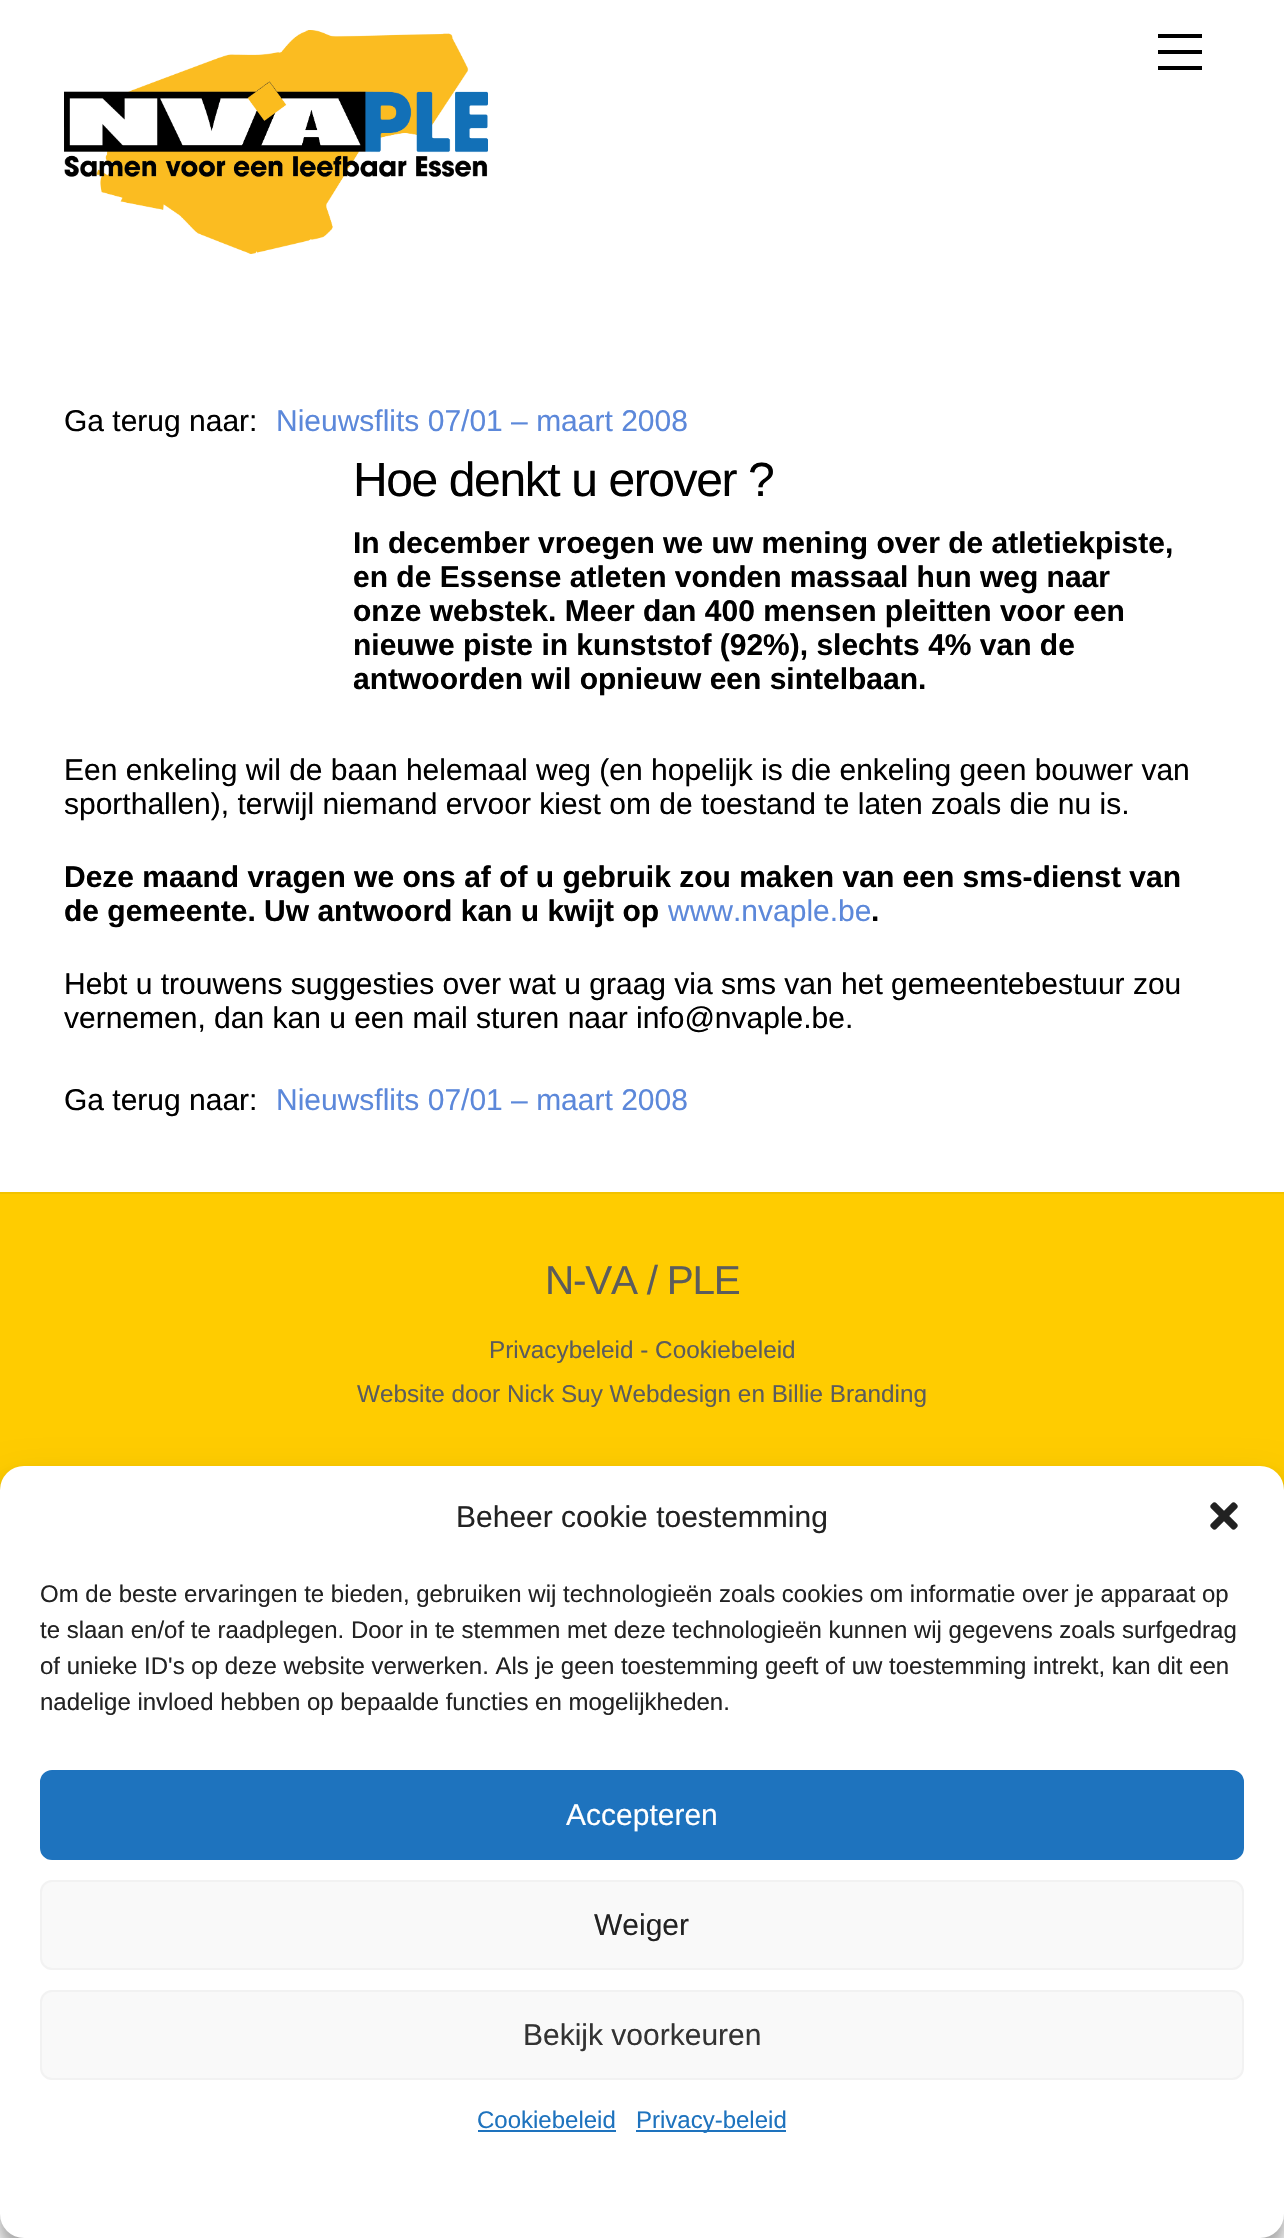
#include "include/core/SkBlurTypes.h"
#include "include/core/SkCanvas.h"
#include "include/core/SkData.h"
#include "include/core/SkFont.h"
#include "include/core/SkFontMgr.h"
#include "include/core/SkImage.h"
#include "include/core/SkMaskFilter.h"
#include "include/core/SkPaint.h"
#include "include/core/SkPathBuilder.h"
#include "include/core/SkTextBlob.h"
#include "include/effects/SkDashPathEffect.h"
#include "include/effects/SkGradientShader.h"
#include "include/utils/SkParsePath.h"

extern sk_sp<SkFontMgr> fontMgr;

void draw(SkCanvas* canvas) {
    SkPaint p;
    p.setAntiAlias(true);
    auto font = [&](const char* family, int weight, float size, bool italic = false) {
        SkFontStyle style(weight, SkFontStyle::kNormal_Width,
            italic ? SkFontStyle::kItalic_Slant : SkFontStyle::kUpright_Slant);
        SkFont result(fontMgr->matchFamilyStyle(family, style), size);
        result.setSubpixel(true);
        return result;
    };
    auto drawTracked = [&](const char* s, float x, float y, const SkFont& font, const SkPaint& ink, float letter, float word) {
        std::vector<SkGlyphID> glyphs(font.countText(s, strlen(s), SkTextEncoding::kUTF8));
        std::vector<float> xs(glyphs.size());
        font.textToGlyphs(s, strlen(s), SkTextEncoding::kUTF8, glyphs);
        font.getXPos(glyphs, xs, x);
        float extra = 0;
        for (size_t i = 0; i < glyphs.size(); i++) {
            xs[i] += extra;
            extra += letter + word * (glyphs[i] == font.unicharToGlyph(' '));
        }
        canvas->drawTextBlob(SkTextBlob::MakeFromPosHGlyphs(glyphs, xs, y, font), 0, 0, ink);
    };
    auto drawPhoto = [&](const char* path, float l, float t, float r, float b) {
        auto image = SkImages::DeferredFromEncodedData(SkData::MakeFromFileName(path));
        canvas->drawImageRect(image, SkRect::MakeLTRB(l, t, r, b), SkSamplingOptions());
    };
    canvas->clear(0xFFFFFFFF);
    drawPhoto("media/1.png", 64, 30, 488, 254);
    {
        const struct { float l, t, r, b; SkColor color; } items[] = {
            {1158, 66, 1202, 70, 0xFF000000},
            {1158, 34, 1202, 38, 0xFF000000},
            {1158, 50, 1202, 54, 0xFF000000},
        };
        for (auto [l, t, r, b, color] : items) {
            p.setColor(color);
            canvas->drawRect(SkRect::MakeLTRB(l, t, r, b), p);
        }
    }
    auto font1 = font("Liberation Sans", 400, 30);
    canvas->drawString("Ga terug naar:", 64, 431, font1, p);
    p.setColor(0xFF5C88DA);
    canvas->drawString("Nieuwsflits 07/01 – maart 2008", 276, 431, font1, p);
    auto font2 = font("Liberation Sans", 400, 48);
    p.setColor(0xFF000000);
    drawTracked("Hoe denkt u erover ?", 353, 496, font2, p, -1.4f, 0);
    auto font3 = font("Liberation Sans", 700, 30);
    {
        const struct { const char* s; float x, y; } items[] = {
            {"In december vroegen we uw mening over de atletiekpiste,", 353, 553},
            {"en de Essense atleten vonden massaal hun weg naar", 353, 587},
            {"onze webstek. Meer dan 400 mensen pleitten voor een", 353, 621},
            {"nieuwe piste in kunststof (92%), slechts 4% van de", 353, 655},
            {"antwoorden wil opnieuw een sintelbaan.", 353, 689},
        };
        for (auto [s, x, y] : items) {
            canvas->drawString(s, x, y, font3, p);
        }
    }
    canvas->drawString("Een enkeling wil de baan helemaal weg (en hopelijk is die enkeling geen bouwer van", 64, 780, font1, p);
    canvas->drawString("sporthallen), terwijl niemand ervoor kiest om de toestand te laten zoals die nu is.", 64, 814, font1, p);
    canvas->drawString("Deze maand vragen we ons af of u gebruik zou maken van een sms-dienst van", 64, 887, font3, p);
    canvas->drawString("de gemeente. Uw antwoord kan u kwijt op", 64, 921, font3, p);
    p.setColor(0xFF5C88DA);
    canvas->drawString("www.nvaple.be", 668, 921, font1, p);
    p.setColor(0xFF000000);
    canvas->drawString(".", 871, 921, font3, p);
    {
        const struct { const char* s; float x, y; } items[] = {
            {"Hebt u trouwens suggesties over wat u graag via sms van het gemeentebestuur zou", 64, 994},
            {"vernemen, dan kan u een mail sturen naar info@nvaple.be.", 64, 1028},
            {"Ga terug naar:", 64, 1110},
        };
        for (auto [s, x, y] : items) {
            canvas->drawString(s, x, y, font1, p);
        }
    }
    p.setColor(0xFF5C88DA);
    canvas->drawString("Nieuwsflits 07/01 – maart 2008", 276, 1110, font1, p);
    p.setColor(0xFFFFCC00);
    canvas->drawRect(SkRect::MakeLTRB(0, 1194, 1284, 1490), p);
    p.setColor(0xFFF2C200);
    canvas->drawRect(SkRect::MakeLTRB(0, 1192, 1284, 1194), p);
    auto font4 = font("Liberation Sans", 400, 40.5f);
    p.setColor(0xFF5C5C5C);
    drawTracked("N-VA / PLE", 545, 1294, font4, p, -1.25f, 0);
    auto font5 = font("Liberation Sans", 400, 24.3f);
    canvas->drawString("Privacybeleid - Cookiebeleid", 489, 1358, font5, p);
    canvas->drawString("Website door Nick Suy Webdesign en Billie Branding", 357, 1402, font5, p);
    p.setColor(0x3B000000);
    p.setMaskFilter(SkMaskFilter::MakeBlur(kNormal_SkBlurStyle, 6));
    canvas->drawRoundRect(SkRect::MakeLTRB(0, 1478, 1284, 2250), 24, 24, p);
    p.setMaskFilter(nullptr);
    p.setColor(0x30000000);
    p.setMaskFilter(SkMaskFilter::MakeBlur(kNormal_SkBlurStyle, 20));
    canvas->drawRoundRect(SkRect::MakeLTRB(0, 1486, 1284, 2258), 24, 24, p);
    p.setMaskFilter(nullptr);
    p.setColor(0xFFFFFFFF);
    canvas->drawRoundRect(SkRect::MakeLTRB(0, 1466, 1284, 2238), 24, 24, p);
    p.setColor(0xFF222222);
    canvas->drawString("Beheer cookie toestemming", 456, 1527, font1, p);
    drawPhoto("media/2.png", 1210, 1502, 1238, 1530);
    auto font6 = font("Liberation Sans", 400, 24);
    {
        const struct { const char* s; float x, y; } items[] = {
            {"Om de beste ervaringen te bieden, gebruiken wij technologieën zoals cookies om informatie over je apparaat op", 40, 1602},
            {"te slaan en/of te raadplegen. Door in te stemmen met deze technologieën kunnen wij gegevens zoals surfgedrag", 40, 1638},
            {"of unieke ID's op deze website verwerken. Als je geen toestemming geeft of uw toestemming intrekt, kan dit een", 40, 1674},
            {"nadelige invloed hebben op bepaalde functies en mogelijkheden.", 40, 1710},
        };
        for (auto [s, x, y] : items) {
            canvas->drawString(s, x, y, font6, p);
        }
    }
    p.setColor(0xFF1E73BE);
    canvas->drawRoundRect(SkRect::MakeLTRB(41, 1771, 1243, 1859), 11, 11, p);
    p.setStyle(SkPaint::kStroke_Style);
    p.setStrokeWidth(2);
    canvas->drawRoundRect(SkRect::MakeLTRB(41, 1771, 1243, 1859), 11, 11, p);
    p.setStyle(SkPaint::kFill_Style);
    p.setColor(0xFFFFFFFF);
    canvas->drawString("Accepteren", 566, 1825, font1, p);
    p.setColor(0xFFF9F9F9);
    canvas->drawRoundRect(SkRect::MakeLTRB(41, 1881, 1243, 1969), 11, 11, p);
    p.setStyle(SkPaint::kStroke_Style);
    p.setColor(0xFFF2F2F2);
    canvas->drawRoundRect(SkRect::MakeLTRB(41, 1881, 1243, 1969), 11, 11, p);
    p.setStyle(SkPaint::kFill_Style);
    p.setColor(0xFF222222);
    canvas->drawString("Weiger", 594, 1935, font1, p);
    p.setColor(0xFFF9F9F9);
    canvas->drawRoundRect(SkRect::MakeLTRB(41, 1991, 1243, 2079), 11, 11, p);
    p.setStyle(SkPaint::kStroke_Style);
    p.setColor(0xFFF2F2F2);
    canvas->drawRoundRect(SkRect::MakeLTRB(41, 1991, 1243, 2079), 11, 11, p);
    p.setStyle(SkPaint::kFill_Style);
    p.setColor(0xFF333333);
    canvas->drawString("Bekijk voorkeuren", 523, 2045, font1, p);
    p.setColor(0xFF1E73BE);
    canvas->drawString("Cookiebeleid", 477, 2128, font6, p);
    canvas->drawRect(SkRect::MakeLTRB(478, 2130, 616, 2132), p);
    canvas->drawRect(SkRect::MakeLTRB(636, 2130, 786, 2132), p);
    canvas->drawString("Privacy-beleid", 636, 2128, font6, p);
}
